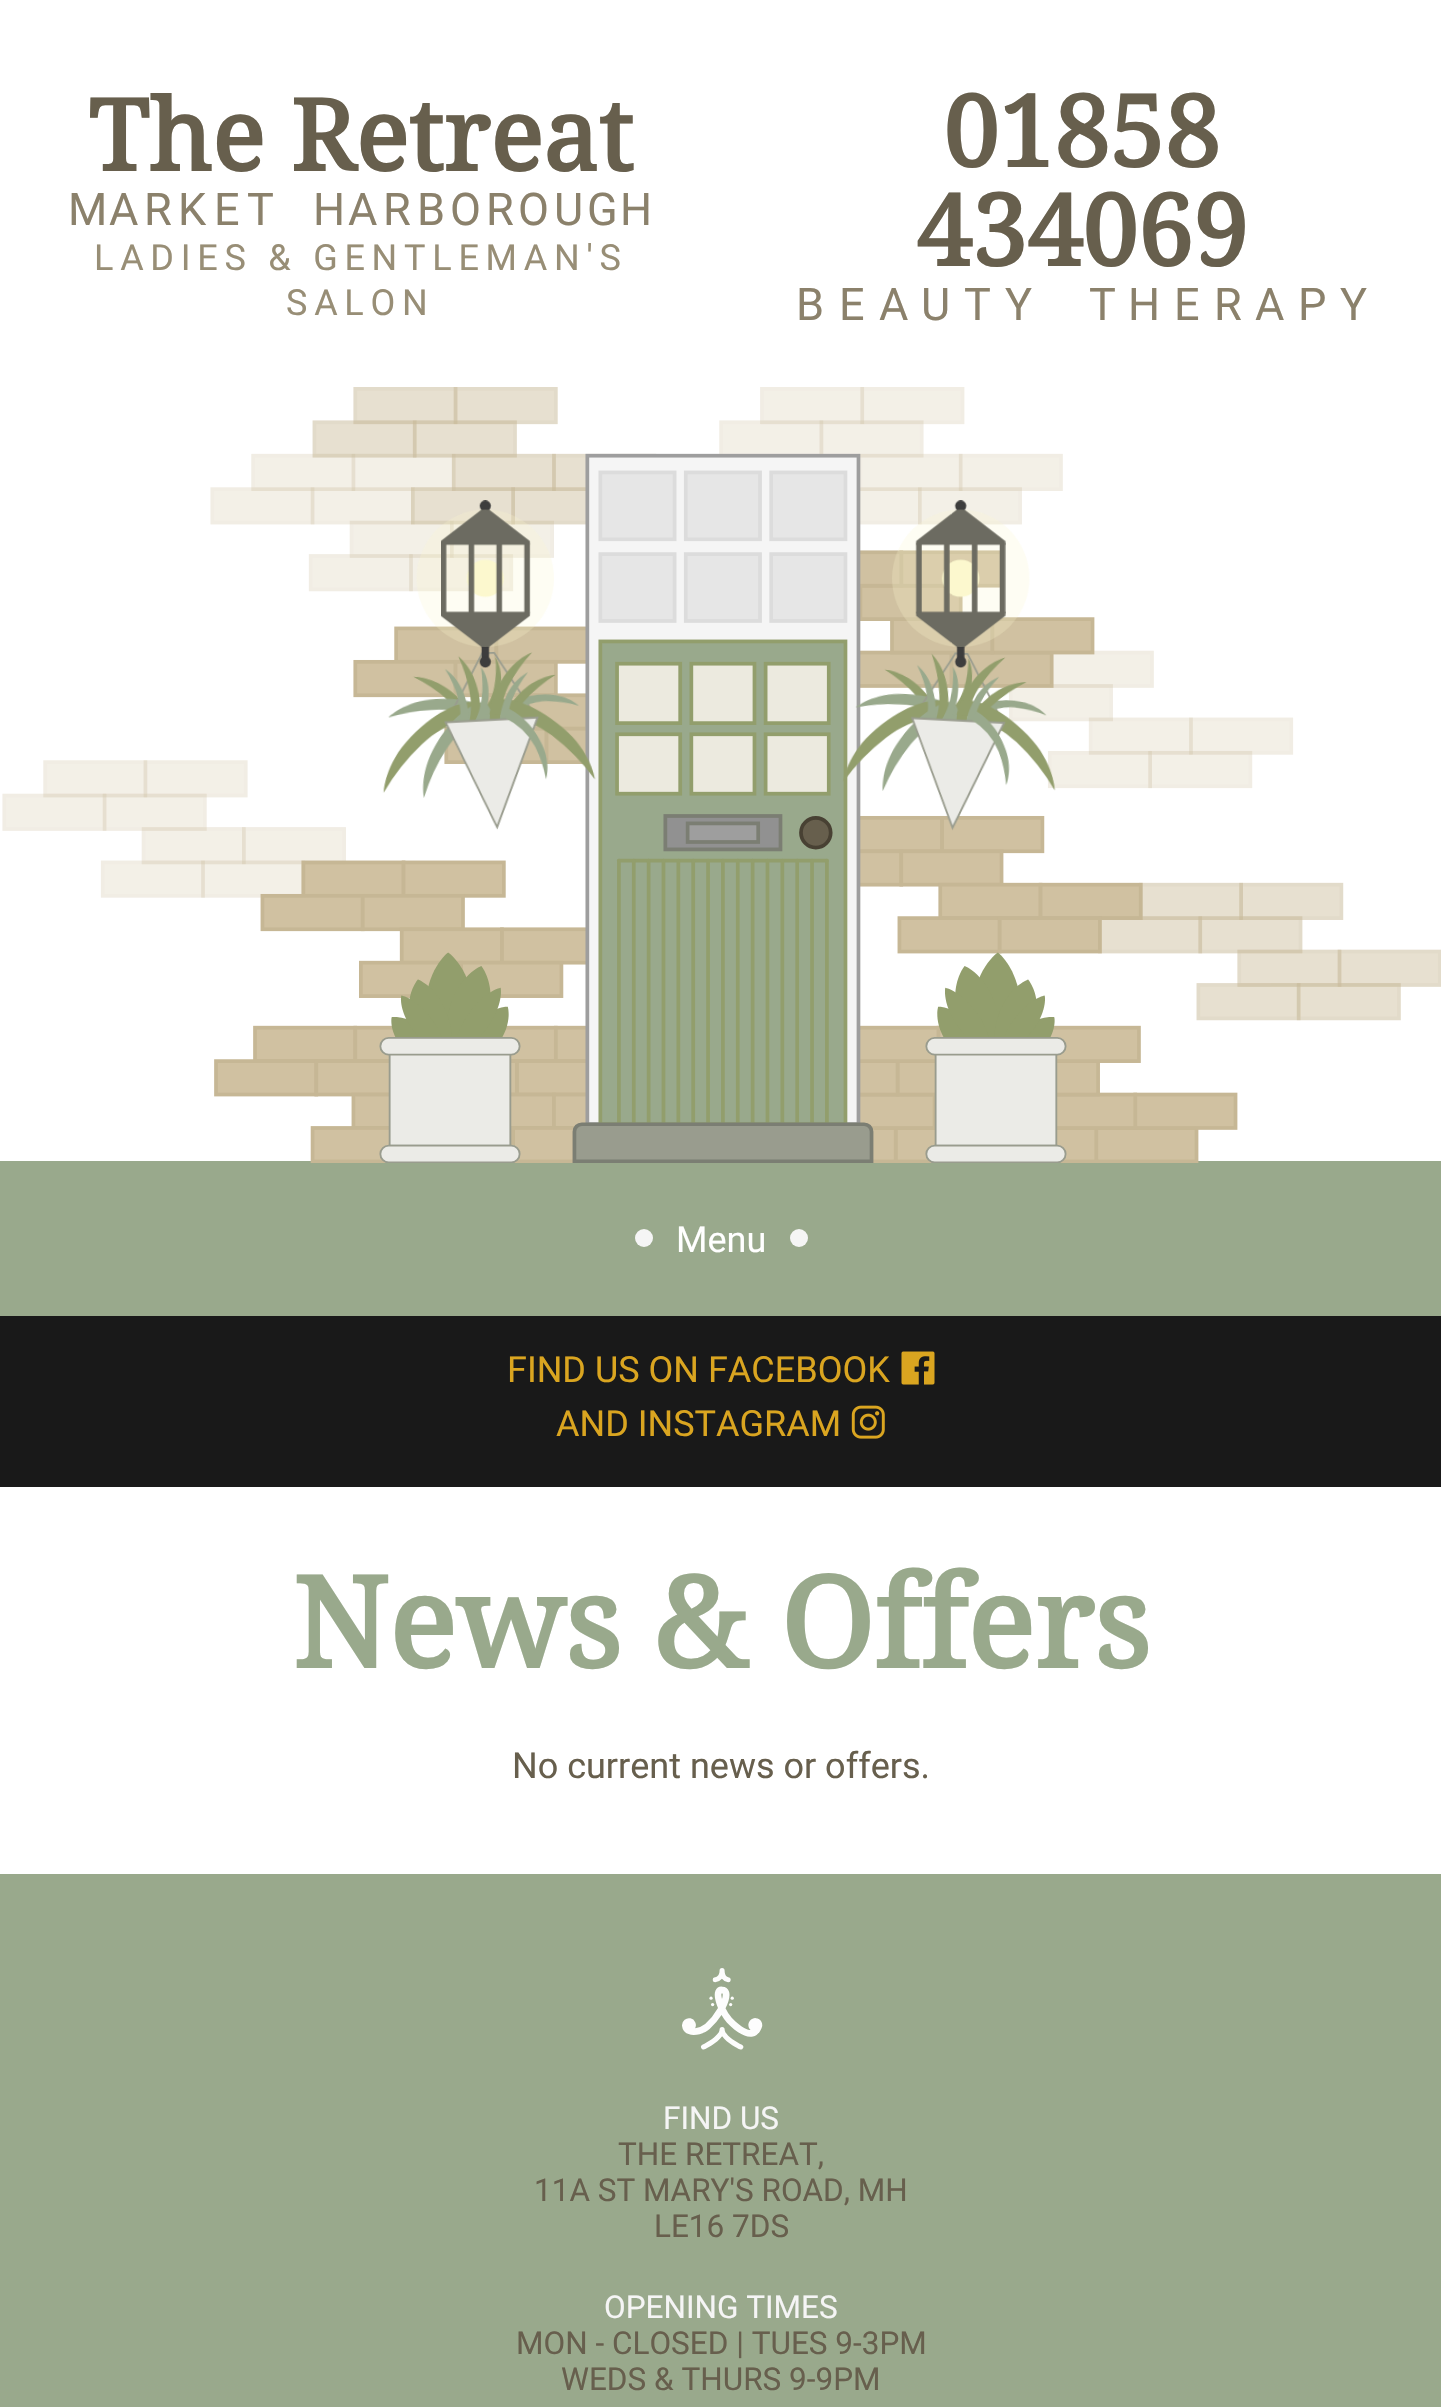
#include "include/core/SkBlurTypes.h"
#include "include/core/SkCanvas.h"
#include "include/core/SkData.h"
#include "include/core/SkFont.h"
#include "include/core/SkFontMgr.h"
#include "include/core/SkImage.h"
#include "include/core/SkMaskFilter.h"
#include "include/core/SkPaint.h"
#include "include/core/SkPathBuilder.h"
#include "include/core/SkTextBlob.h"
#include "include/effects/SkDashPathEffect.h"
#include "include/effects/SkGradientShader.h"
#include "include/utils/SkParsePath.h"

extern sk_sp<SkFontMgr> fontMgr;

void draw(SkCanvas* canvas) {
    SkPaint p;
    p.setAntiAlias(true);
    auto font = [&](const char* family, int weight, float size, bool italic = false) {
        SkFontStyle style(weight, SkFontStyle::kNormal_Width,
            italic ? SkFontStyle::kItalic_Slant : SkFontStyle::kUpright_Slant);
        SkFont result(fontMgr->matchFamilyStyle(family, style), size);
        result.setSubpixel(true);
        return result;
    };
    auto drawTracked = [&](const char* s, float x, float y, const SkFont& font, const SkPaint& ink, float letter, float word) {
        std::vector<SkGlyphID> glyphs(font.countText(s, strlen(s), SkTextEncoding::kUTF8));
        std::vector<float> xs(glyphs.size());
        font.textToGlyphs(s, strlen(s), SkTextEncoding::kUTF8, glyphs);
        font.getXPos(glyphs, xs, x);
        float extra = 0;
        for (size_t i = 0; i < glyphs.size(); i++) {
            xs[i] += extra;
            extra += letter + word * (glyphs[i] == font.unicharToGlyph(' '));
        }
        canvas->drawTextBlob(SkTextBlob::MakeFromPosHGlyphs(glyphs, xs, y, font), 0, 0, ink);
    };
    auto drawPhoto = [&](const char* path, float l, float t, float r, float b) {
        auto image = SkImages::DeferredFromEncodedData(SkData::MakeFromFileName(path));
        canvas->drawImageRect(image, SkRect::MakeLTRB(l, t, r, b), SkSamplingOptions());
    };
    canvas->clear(0xFFFFFFFF);
    auto font1 = font("Noto Serif", 700, 99);
    p.setColor(0xFF675F4D);
    canvas->drawString("The Retreat", 88, 171, font1, p);
    auto font2 = font("Roboto", 400, 45);
    p.setColor(0xFF8B816B);
    {
        const struct { const char* s; float x, y; } items[] = {
            {"M", 68, 225},
            {"A", 109, 225},
            {"R", 144, 225},
            {"K", 178, 225},
            {"E", 214, 225},
            {"T", 247, 225},
            {"H", 313, 225},
            {"A", 348, 225},
            {"R", 383, 225},
            {"B", 417, 225},
            {"O", 450, 225},
            {"R", 486, 225},
            {"O", 518, 225},
            {"U", 554, 225},
            {"G", 587, 225},
            {"H", 620, 225},
        };
        for (auto [s, x, y] : items) {
            canvas->drawString(s, x, y, font2, p);
        }
    }
    auto font3 = font("Roboto", 400, 36);
    p.setColor(0xFF988E76);
    drawTracked("LADIES & GENTLEMAN'S", 94, 270, font3, p, 6.75f, 0);
    drawTracked("SALON", 286, 315, font3, p, 6.75f, 0);
    p.setColor(0xFF675F4D);
    canvas->drawString("01858", 943, 167, font1, p);
    canvas->drawString("434069", 916, 266, font1, p);
    p.setColor(0xFF8B816B);
    {
        const struct { const char* s; float x, y; } items[] = {
            {"B", 796, 320},
            {"E", 839, 320},
            {"A", 879, 320},
            {"U", 921, 320},
            {"T", 964, 320},
            {"Y", 1005, 320},
            {"T", 1089, 320},
            {"H", 1128, 320},
            {"E", 1174, 320},
            {"R", 1214, 320},
            {"A", 1255, 320},
            {"P", 1298, 320},
            {"Y", 1340, 320},
        };
        for (auto [s, x, y] : items) {
            canvas->drawString(s, x, y, font2, p);
        }
    }
    p.setColor(0xFF99A98C);
    canvas->drawRect(SkRect::MakeLTRB(0, 1161, 1441, 1316), p);
    drawPhoto("media/1.png", 2, 387, 1441, 1163);
    p.setColor(0xFFF5F5F5);
    canvas->drawCircle(644, 1238, 9, p);
    p.setColor(0xFFFFFFFF);
    canvas->drawString("Menu", 676, 1252, font3, p);
    p.setColor(0xFFF5F5F5);
    canvas->drawCircle(799, 1238, 9, p);
    p.setColor(0xFF191919);
    canvas->drawRect(SkRect::MakeLTRB(0, 1316, 1441, 1487), p);
    p.setColor(0xFFDAA520);
    canvas->drawString("FIND US ON FACEBOOK", 507, 1382, font3, p);
    drawPhoto("media/2.png", 901, 1351, 935, 1385);
    canvas->drawString("AND INSTAGRAM", 556, 1436, font3, p);
    drawPhoto("media/3.png", 851, 1405, 885, 1439);
    auto font4 = font("Noto Serif", 700, 126);
    p.setColor(0xFF99A98C);
    canvas->drawString("News & Offers", 292, 1668, font4, p);
    p.setColor(0xFF675F4D);
    canvas->drawString("No current news or offers.", 512, 1778, font3, p);
    p.setColor(0xFF99A98C);
    canvas->drawRect(SkRect::MakeLTRB(0, 1874, 1441, 2407), p);
    drawPhoto("media/4.png", 682, 1968, 763, 2050);
    auto font5 = font("Roboto", 400, 31.5f);
    p.setColor(0xFFF5F5F5);
    canvas->drawString("FIND US", 663, 2129, font5, p);
    p.setColor(0xFF675F4D);
    {
        const struct { const char* s; float x, y; } items[] = {
            {"THE RETREAT,", 618, 2165},
            {"11A ST MARY'S ROAD, MH", 534, 2201},
            {"LE16 7DS", 654, 2237},
        };
        for (auto [s, x, y] : items) {
            canvas->drawString(s, x, y, font5, p);
        }
    }
    p.setColor(0xFFF5F5F5);
    canvas->drawString("OPENING TIMES", 604, 2318, font5, p);
    p.setColor(0xFF675F4D);
    canvas->drawString("MON - CLOSED | TUES 9-3PM", 516, 2354, font5, p);
    canvas->drawString("WEDS & THURS 9-9PM", 561, 2390, font5, p);
}
